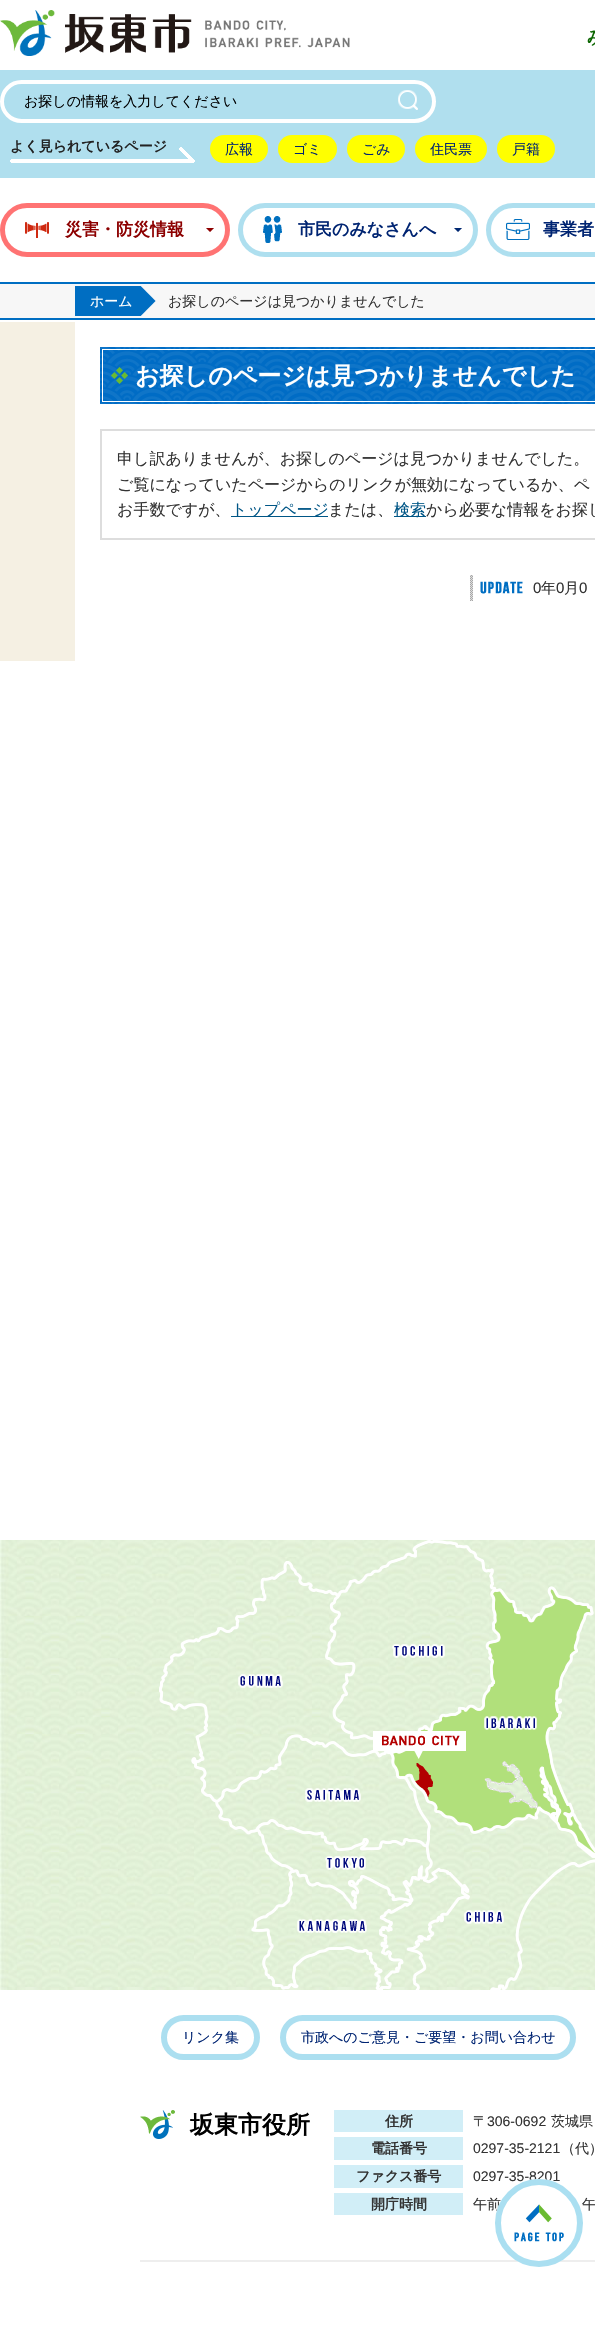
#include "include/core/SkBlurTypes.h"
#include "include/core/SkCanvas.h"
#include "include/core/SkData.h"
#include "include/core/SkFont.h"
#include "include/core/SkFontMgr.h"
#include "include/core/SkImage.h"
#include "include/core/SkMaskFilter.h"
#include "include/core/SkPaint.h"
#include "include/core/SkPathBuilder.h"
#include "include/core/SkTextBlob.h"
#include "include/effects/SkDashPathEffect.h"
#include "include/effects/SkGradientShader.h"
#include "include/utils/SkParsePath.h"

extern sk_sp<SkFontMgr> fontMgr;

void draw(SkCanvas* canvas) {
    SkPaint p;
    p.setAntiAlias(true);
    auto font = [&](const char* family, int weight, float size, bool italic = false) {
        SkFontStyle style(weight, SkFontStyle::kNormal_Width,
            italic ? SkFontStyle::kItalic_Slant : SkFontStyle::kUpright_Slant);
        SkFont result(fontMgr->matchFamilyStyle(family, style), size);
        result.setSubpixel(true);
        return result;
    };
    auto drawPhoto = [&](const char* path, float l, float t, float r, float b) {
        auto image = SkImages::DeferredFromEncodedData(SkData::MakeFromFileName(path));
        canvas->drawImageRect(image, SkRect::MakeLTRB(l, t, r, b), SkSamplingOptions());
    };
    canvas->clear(0xFFFFFFFF);
    drawPhoto("media/1.png", 0, 10, 350, 56);
    drawPhoto("media/2.png", 587, 30, 595, 46);
    p.setColor(0xFFB0DFEE);
    canvas->drawRect(SkRect::MakeLTRB(0, 70, 595, 178), p);
    p.setStyle(SkPaint::kStroke_Style);
    p.setStrokeWidth(4);
    p.setColor(0xFFFFFFFF);
    canvas->drawRoundRect(SkRect::MakeLTRB(2, 82, 434, 121), 19.5f, 19.5f, p);
    auto font1 = font("WenQuanYi Zen Hei", 500, 14);
    p.setStyle(SkPaint::kFill_Style);
    p.setColor(0xFF000000);
    canvas->drawString("お探しの情報を入力してください", 24, 106, font1, p);
    drawPhoto("media/3.png", 398, 90, 418, 110);
    drawPhoto("media/4.png", 10, 147, 195, 163);
    auto font2 = font("WenQuanYi Zen Hei", 700, 14);
    p.setColor(0xFF222222);
    canvas->drawString("よく見られているページ", 10, 151, font2, p);
    p.setColor(0xFFFFFF00);
    canvas->drawRoundRect(SkRect::MakeLTRB(210, 135, 268, 163), 14, 14, p);
    p.setColor(0xFF002472);
    canvas->drawString("広報", 225, 154, font1, p);
    p.setColor(0xFFFFFF00);
    canvas->drawRoundRect(SkRect::MakeLTRB(278, 135, 337, 163), 14, 14, p);
    p.setColor(0xFF002472);
    canvas->drawString("ゴミ", 293, 154, font1, p);
    p.setColor(0xFFFFFF00);
    canvas->drawRoundRect(SkRect::MakeLTRB(347, 135, 405, 163), 14, 14, p);
    p.setColor(0xFF002472);
    canvas->drawString("ごみ", 362, 154, font1, p);
    p.setColor(0xFFFFFF00);
    canvas->drawRoundRect(SkRect::MakeLTRB(415, 135, 487, 163), 14, 14, p);
    p.setColor(0xFF002472);
    canvas->drawString("住民票", 430, 154, font1, p);
    p.setColor(0xFFFFFF00);
    canvas->drawRoundRect(SkRect::MakeLTRB(497, 135, 555, 163), 14, 14, p);
    p.setColor(0xFF002472);
    canvas->drawString("戸籍", 512, 154, font1, p);
    drawPhoto("media/5.png", 25, 222, 214, 238);
    p.setStyle(SkPaint::kStroke_Style);
    p.setStrokeWidth(5);
    p.setColor(0xFFFF7373);
    canvas->drawRoundRect(SkRect::MakeLTRB(2.5f, 205.5f, 227.5f, 254.5f), 24.5f, 24.5f, p);
    auto font3 = font("WenQuanYi Zen Hei", 700, 17);
    p.setStyle(SkPaint::kFill_Style);
    p.setColor(0xFF8C0000);
    canvas->drawString("災害・防災情報", 65, 235, font3, p);
    drawPhoto("media/6.png", 263, 216, 462, 243);
    p.setStyle(SkPaint::kStroke_Style);
    p.setColor(0xFFAEDFEF);
    canvas->drawRoundRect(SkRect::MakeLTRB(240.5f, 205.5f, 475.5f, 254.5f), 24.5f, 24.5f, p);
    p.setStyle(SkPaint::kFill_Style);
    p.setColor(0xFF002472);
    canvas->drawString("市民のみなさんへ", 298, 235, font3, p);
    drawPhoto("media/7.png", 506, 219, 530, 240);
    p.setStyle(SkPaint::kStroke_Style);
    p.setColor(0xFFAEDFEF);
    canvas->drawRoundRect(SkRect::MakeLTRB(488.5f, 205.5f, 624.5f, 254.5f), 24.5f, 24.5f, p);
    p.setStyle(SkPaint::kFill_Style);
    p.setColor(0xFF002472);
    canvas->drawString("事業者", 543, 235, font3, p);
    {
        const struct { float l, t, r, b; SkColor color; } items[] = {
            {0, 284, 595, 318, 0xFFF7F7F7},
            {0, 282, 595, 284, 0xFF006EC2},
            {0, 318, 595, 320, 0xFF006EC2},
            {75, 286, 156, 316, 0xFF006EC2},
        };
        for (auto [l, t, r, b, color] : items) {
            p.setColor(color);
            canvas->drawRect(SkRect::MakeLTRB(l, t, r, b), p);
        }
    }
    drawPhoto("media/8.png", 140, 286, 158, 316);
    p.setColor(0xFFFFFFFF);
    canvas->drawString("ホーム", 90, 306, font1, p);
    p.setColor(0xFF333333);
    canvas->drawString("お探しのページは見つかりませんでした", 168, 306, font1, p);
    p.setColor(0xFFF5F0E3);
    canvas->drawRect(SkRect::MakeLTRB(0, 322, 75, 661), p);
    drawPhoto("media/9.png", 100, 347, 595, 404);
    drawPhoto("media/10.png", 111, 367, 128, 384);
    p.setStyle(SkPaint::kStroke_Style);
    p.setStrokeWidth(1);
    p.setColor(0xFFFFFFFF);
    canvas->drawRect(SkRect::MakeLTRB(102.5f, 349.5f, 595.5f, 401.5f), p);
    auto font4 = font("WenQuanYi Zen Hei", 700, 24);
    p.setStyle(SkPaint::kFill_Style);
    canvas->drawString("お探しのページは見つかりませんでした", 135, 384, font4, p);
    p.setStyle(SkPaint::kStroke_Style);
    p.setStrokeWidth(2);
    p.setColor(0xFFDDDDDD);
    canvas->drawRect(SkRect::MakeLTRB(101, 430, 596, 539), p);
    auto font5 = font("WenQuanYi Zen Hei", 500, 16);
    p.setStyle(SkPaint::kFill_Style);
    p.setColor(0xFF333333);
    {
        const struct { const char* s; float x, y; } items[] = {
            {"申し訳ありませんが、お探しのページは見つかりませんでした。", 117, 464},
            {"ご覧になっていたページからのリンクが無効になっているか、ペ", 117, 490},
            {"お手数ですが、", 117, 515},
        };
        for (auto [s, x, y] : items) {
            canvas->drawString(s, x, y, font5, p);
        }
    }
    p.setColor(0xFF005686);
    canvas->drawRect(SkRect::MakeLTRB(231, 516, 328, 517), p);
    canvas->drawString("トップページ", 231, 515, font5, p);
    p.setColor(0xFF333333);
    canvas->drawString("または、", 328, 515, font5, p);
    p.setColor(0xFF005686);
    canvas->drawRect(SkRect::MakeLTRB(394, 516, 426, 517), p);
    canvas->drawString("検索", 394, 515, font5, p);
    p.setColor(0xFF333333);
    canvas->drawString("から必要な情報をお探し", 426, 515, font5, p);
    drawPhoto("media/11.png", 470, 575, 473, 601);
    drawPhoto("media/12.png", 480, 581, 523, 594);
    auto font6 = font("Liberation Sans", 400, 15);
    canvas->drawString("0", 533, 593, font6, p);
    auto font7 = font("WenQuanYi Zen Hei", 500, 15);
    canvas->drawString("年", 541, 593, font7, p);
    canvas->drawString("0", 556, 593, font6, p);
    canvas->drawString("月", 564, 593, font7, p);
    canvas->drawString("0", 579, 593, font6, p);
    drawPhoto("media/13.png", 0, 1540, 595, 1990);
    p.setStyle(SkPaint::kStroke_Style);
    p.setStrokeWidth(6);
    p.setColor(0xFFACDFF0);
    canvas->drawRoundRect(SkRect::MakeLTRB(164, 2018, 257, 2057), 19.5f, 19.5f, p);
    p.setStyle(SkPaint::kFill_Style);
    p.setColor(0xFF002472);
    canvas->drawString("リンク集", 182, 2042, font1, p);
    p.setStyle(SkPaint::kStroke_Style);
    p.setColor(0xFFACDFF0);
    canvas->drawRoundRect(SkRect::MakeLTRB(283, 2018, 573, 2057), 19.5f, 19.5f, p);
    p.setStyle(SkPaint::kFill_Style);
    p.setColor(0xFF002472);
    canvas->drawString("市政へのご意見・ご要望・お問い合わせ", 301, 2042, font1, p);
    p.setColor(0xFFEEEEEE);
    canvas->drawRect(SkRect::MakeLTRB(140, 2260, 595, 2262), p);
    drawPhoto("media/14.png", 140, 2110, 175, 2139);
    p.setColor(0xFF000000);
    canvas->drawString("坂東市役所", 190, 2133, font4, p);
    p.setColor(0xFFD1EEF7);
    canvas->drawRect(SkRect::MakeLTRB(334, 2110, 463, 2132), p);
    p.setColor(0xFF333333);
    canvas->drawString("住所", 385, 2126, font2, p);
    canvas->drawString("〒", 473, 2126, font1, p);
    auto font8 = font("Liberation Sans", 400, 14);
    canvas->drawString("306-0692", 487, 2126, font8, p);
    canvas->drawString("茨城県", 551, 2126, font1, p);
    p.setColor(0xFFD1EEF7);
    canvas->drawRect(SkRect::MakeLTRB(334, 2137, 463, 2160), p);
    p.setColor(0xFF333333);
    canvas->drawString("電話番号", 371, 2153, font2, p);
    canvas->drawString("0297-35-2121", 473, 2153, font8, p);
    canvas->drawString("（代）", 561, 2153, font1, p);
    p.setColor(0xFFD1EEF7);
    canvas->drawRect(SkRect::MakeLTRB(334, 2165, 463, 2188), p);
    p.setColor(0xFF333333);
    canvas->drawString("ファクス番号", 356, 2181, font2, p);
    canvas->drawString("0297-35-8201", 473, 2181, font8, p);
    p.setColor(0xFFD1EEF7);
    canvas->drawRect(SkRect::MakeLTRB(334, 2193, 463, 2215), p);
    p.setColor(0xFF333333);
    canvas->drawString("開庁時間", 371, 2209, font2, p);
    canvas->drawString("午前", 473, 2209, font1, p);
    canvas->drawString("午", 582, 2209, font1, p);
    p.setColor(0xFFFFFFFF);
    canvas->drawCircle(539, 2223, 44, p);
    drawPhoto("media/15.png", 514, 2204, 564, 2242);
    p.setStyle(SkPaint::kStroke_Style);
    p.setColor(0xFFAADFF1);
    canvas->drawCircle(539, 2223, 41, p);
}
